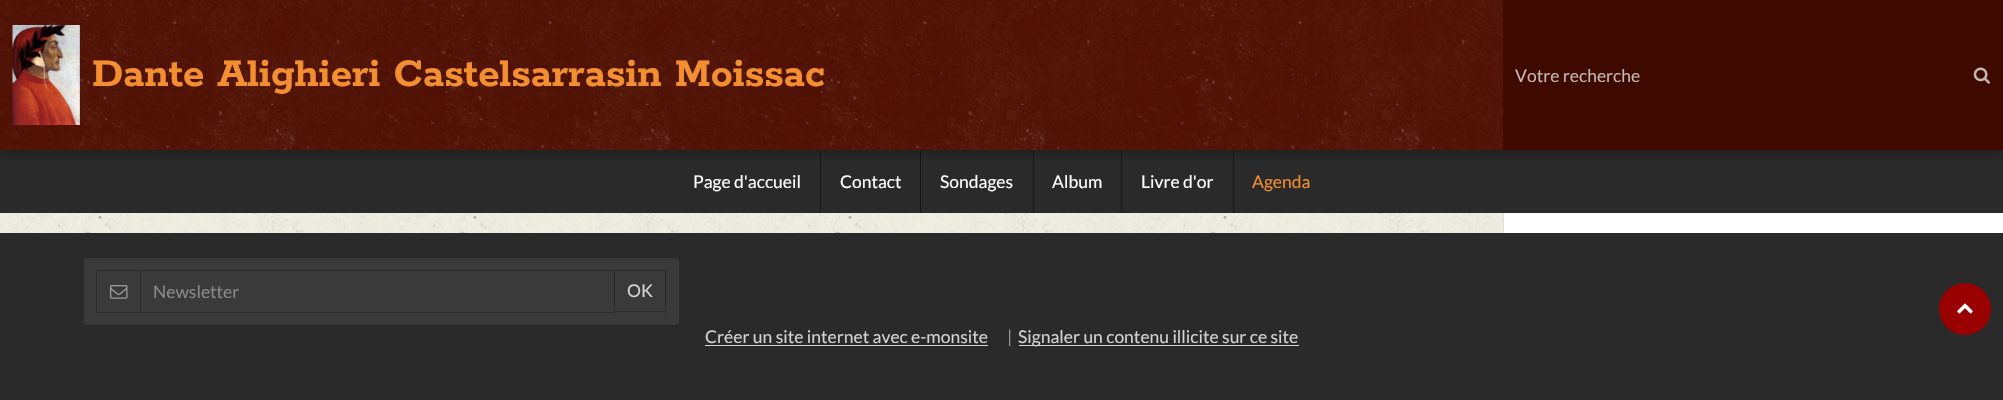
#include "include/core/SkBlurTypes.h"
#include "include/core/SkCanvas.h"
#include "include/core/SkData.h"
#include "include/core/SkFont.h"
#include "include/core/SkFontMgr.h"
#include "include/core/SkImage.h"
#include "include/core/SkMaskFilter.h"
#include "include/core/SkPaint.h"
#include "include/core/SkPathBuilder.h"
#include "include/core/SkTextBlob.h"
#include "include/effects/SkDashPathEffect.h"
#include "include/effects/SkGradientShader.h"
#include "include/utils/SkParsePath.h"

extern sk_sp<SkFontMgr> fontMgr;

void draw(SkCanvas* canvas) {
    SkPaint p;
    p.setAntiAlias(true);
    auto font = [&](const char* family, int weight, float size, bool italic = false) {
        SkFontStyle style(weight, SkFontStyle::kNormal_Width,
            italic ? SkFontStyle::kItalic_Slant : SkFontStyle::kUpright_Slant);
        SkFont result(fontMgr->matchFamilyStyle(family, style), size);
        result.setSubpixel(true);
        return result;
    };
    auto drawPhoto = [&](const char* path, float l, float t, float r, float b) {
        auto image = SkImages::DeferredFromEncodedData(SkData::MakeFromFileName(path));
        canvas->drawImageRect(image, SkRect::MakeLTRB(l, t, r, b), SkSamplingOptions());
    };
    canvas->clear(0xFFF4F3E8);
    drawPhoto("media/1.png", 0, 213, 1503, 233);
    {
        const struct { float l, t, r, b; SkColor color; } items[] = {
            {0, 150, 2003, 213, 0xFF2A2A2A},
            {820, 150, 821, 213, 0xFF171717},
            {920, 150, 921, 213, 0xFF171717},
            {1033, 150, 1034, 213, 0xFF171717},
            {1121, 150, 1122, 213, 0xFF171717},
            {1233, 150, 1234, 213, 0xFF171717},
        };
        for (auto [l, t, r, b, color] : items) {
            p.setColor(color);
            canvas->drawRect(SkRect::MakeLTRB(l, t, r, b), p);
        }
    }
    p.setColor(0x33000000);
    p.setMaskFilter(SkMaskFilter::MakeBlur(kNormal_SkBlurStyle, 3));
    canvas->drawRect(SkRect::MakeLTRB(0, 6, 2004, 156), p);
    p.setMaskFilter(nullptr);
    p.setColor(0xFF4D0D00);
    canvas->drawRect(SkRect::MakeLTRB(0, 0, 1503, 150), p);
    drawPhoto("media/2.png", 0, 0, 1503, 150);
    drawPhoto("media/3.png", 12, 25, 80, 125);
    auto font1 = font("Rokkitt", 600, 43.75f);
    p.setColor(0xFFF38F31);
    canvas->drawString("Dante Alighieri Castelsarrasin Moissac", 92, 86, font1, p);
    p.setColor(0xFF3E0A00);
    canvas->drawRect(SkRect::MakeLTRB(1503, 0, 2003, 150), p);
    auto font2 = font("Lato", 400, 17.5f);
    p.setColor(0xFFC5B6B3);
    canvas->drawString("Votre recherche", 1515, 82, font2, p);
    drawPhoto("media/4.png", 1973, 67, 1990, 84);
    p.setColor(0xFFFFFFFF);
    {
        const struct { const char* s; float x, y; } items[] = {
            {"Page d'accueil", 693, 188},
            {"Contact", 840, 188},
            {"Sondages", 940, 188},
            {"Album", 1052, 188},
            {"Livre d'or", 1141, 188},
        };
        for (auto [s, x, y] : items) {
            canvas->drawString(s, x, y, font2, p);
        }
    }
    p.setColor(0xFFF38F31);
    canvas->drawString("Agenda", 1252, 188, font2, p);
    {
        const struct { float l, t, r, b; SkColor color; } items[] = {
            {1504, 213, 2003, 233, 0xFFFFFFFF},
            {1503, 213, 1504, 233, 0xFFDDDDDD},
            {0, 233, 2003, 400, 0xFF2A2A2A},
        };
        for (auto [l, t, r, b, color] : items) {
            p.setColor(color);
            canvas->drawRect(SkRect::MakeLTRB(l, t, r, b), p);
        }
    }
    p.setColor(0xFF3A3A3A);
    canvas->drawRoundRect(SkRect::MakeLTRB(84, 258, 679, 325), 4, 4, p);
    p.setStyle(SkPaint::kStroke_Style);
    p.setStrokeWidth(1);
    p.setColor(0xFF2A2A2A);
    canvas->drawRect(SkRect::MakeLTRB(96.5f, 270.5f, 140.5f, 312.5f), p);
    drawPhoto("media/5.png", 110, 285, 128, 299);
    canvas->drawRect(SkRect::MakeLTRB(140.5f, 270.5f, 614.5f, 312.5f), p);
    p.setStyle(SkPaint::kFill_Style);
    p.setColor(0xFF898989);
    canvas->drawString("Newsletter", 153, 298, font2, p);
    {
        const struct { float l, t, r, b; SkColor color; } items[] = {
            {614, 270, 666, 271, 0xFF2A2A2A},
            {665, 270, 666, 313, 0xFF2A2A2A},
            {614, 311, 666, 312, 0xFF2A2A2A},
        };
        for (auto [l, t, r, b, color] : items) {
            p.setColor(color);
            canvas->drawRect(SkRect::MakeLTRB(l, t, r, b), p);
        }
    }
    p.setColor(0xFFD4D4D4);
    canvas->drawString("OK", 627, 297, font2, p);
    canvas->drawString("Créer un site internet avec e-monsite", 705, 343, font2, p);
    canvas->drawRect(SkRect::MakeLTRB(705, 345, 988, 346), p);
    p.setColor(0xFF959595);
    canvas->drawString("|", 1007, 343, font2, p);
    p.setColor(0xFFD4D4D4);
    canvas->drawRect(SkRect::MakeLTRB(1019, 345, 1299, 346), p);
    canvas->drawString("Signaler un contenu illicite sur ce site", 1018, 343, font2, p);
    p.setColor(0xFF990000);
    canvas->drawCircle(1965, 309, 26, p);
    drawPhoto("media/6.png", 1957, 303, 1973, 314);
}
